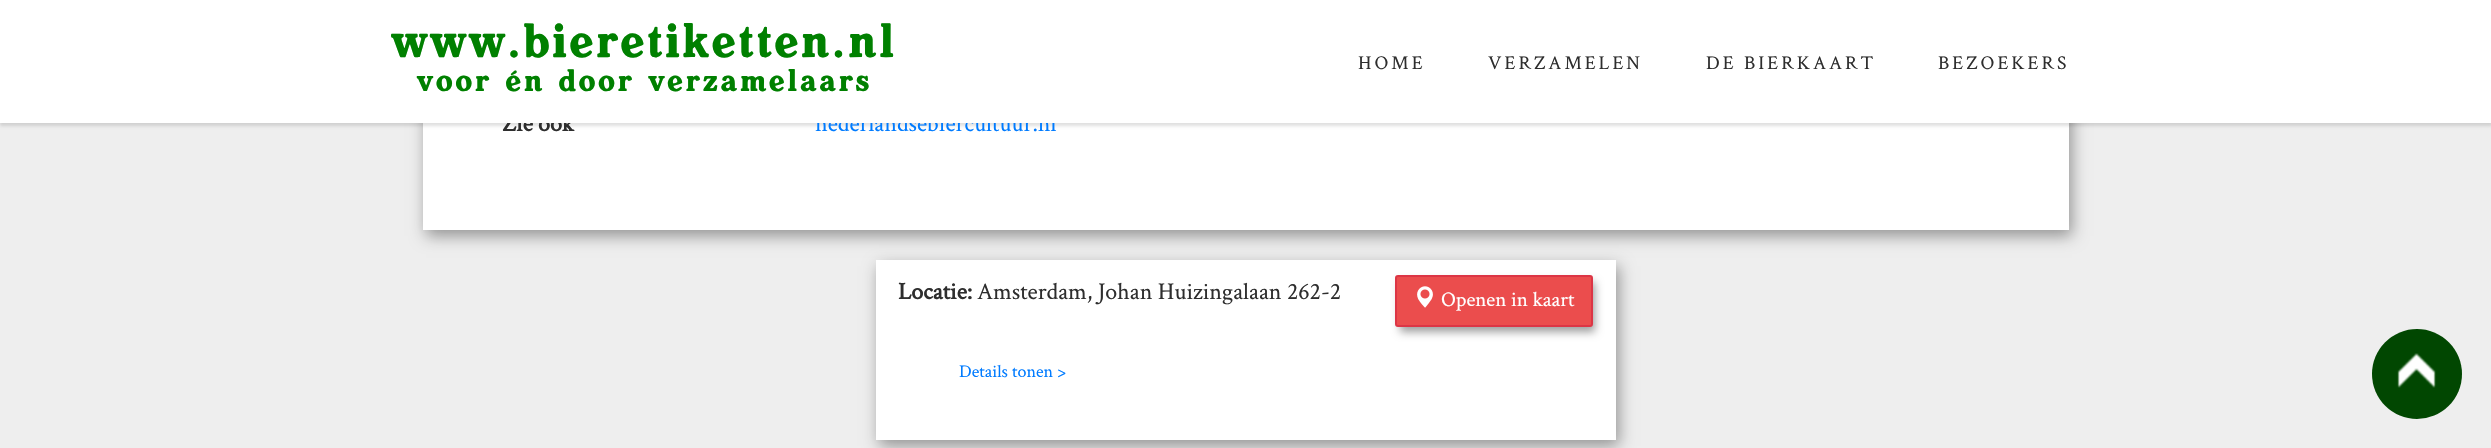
#include "include/core/SkBlurTypes.h"
#include "include/core/SkCanvas.h"
#include "include/core/SkData.h"
#include "include/core/SkFont.h"
#include "include/core/SkFontMgr.h"
#include "include/core/SkImage.h"
#include "include/core/SkMaskFilter.h"
#include "include/core/SkPaint.h"
#include "include/core/SkPathBuilder.h"
#include "include/core/SkTextBlob.h"
#include "include/effects/SkDashPathEffect.h"
#include "include/effects/SkGradientShader.h"
#include "include/utils/SkParsePath.h"

extern sk_sp<SkFontMgr> fontMgr;

void draw(SkCanvas* canvas) {
    SkPaint p;
    p.setAntiAlias(true);
    auto font = [&](const char* family, int weight, float size, bool italic = false) {
        SkFontStyle style(weight, SkFontStyle::kNormal_Width,
            italic ? SkFontStyle::kItalic_Slant : SkFontStyle::kUpright_Slant);
        SkFont result(fontMgr->matchFamilyStyle(family, style), size);
        result.setSubpixel(true);
        return result;
    };
    auto drawTracked = [&](const char* s, float x, float y, const SkFont& font, const SkPaint& ink, float letter, float word) {
        std::vector<SkGlyphID> glyphs(font.countText(s, strlen(s), SkTextEncoding::kUTF8));
        std::vector<float> xs(glyphs.size());
        font.textToGlyphs(s, strlen(s), SkTextEncoding::kUTF8, glyphs);
        font.getXPos(glyphs, xs, x);
        float extra = 0;
        for (size_t i = 0; i < glyphs.size(); i++) {
            xs[i] += extra;
            extra += letter + word * (glyphs[i] == font.unicharToGlyph(' '));
        }
        canvas->drawTextBlob(SkTextBlob::MakeFromPosHGlyphs(glyphs, xs, y, font), 0, 0, ink);
    };
    auto drawPhoto = [&](const char* path, float l, float t, float r, float b) {
        auto image = SkImages::DeferredFromEncodedData(SkData::MakeFromFileName(path));
        canvas->drawImageRect(image, SkRect::MakeLTRB(l, t, r, b), SkSamplingOptions());
    };
    canvas->clear(0xFFEEEEEE);
    p.setColor(0x61000000);
    p.setMaskFilter(SkMaskFilter::MakeBlur(kNormal_SkBlurStyle, 7.5f));
    canvas->drawRect(SkRect::MakeLTRB(426, -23, 2072, 236), p);
    p.setMaskFilter(nullptr);
    p.setColor(0xFFFFFFFF);
    canvas->drawRect(SkRect::MakeLTRB(423, 123, 2069, 230), p);
    p.setColor(0x1F000000);
    p.setMaskFilter(SkMaskFilter::MakeBlur(kNormal_SkBlurStyle, 1.5f));
    canvas->drawRect(SkRect::MakeLTRB(0, 3, 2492, 126), p);
    p.setMaskFilter(nullptr);
    auto font1 = font("Crimson Text", 700, 24);
    p.setColor(0xFF2E2E2E);
    canvas->drawString("Zie ook", 502, 131, font1, p);
    auto font2 = font("Crimson Text", 400, 24);
    p.setColor(0xFF007BFF);
    canvas->drawString("nederlandsebiercultuur.nl", 815, 131, font2, p);
    p.setColor(0xFFFFFFFF);
    canvas->drawRect(SkRect::MakeLTRB(0, 0, 2491, 123), p);
    auto font3 = font("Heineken", 400, 48);
    p.setColor(0xFF008000);
    drawTracked("www.bieretiketten.nl", 391, 57, font3, p, 3, 0);
    auto font4 = font("Heineken", 400, 31.25f);
    drawTracked("voor én door verzamelaars", 417, 91, font4, p, 3, 0);
    auto font5 = font("Crimson Text", 400, 19.5f);
    p.setColor(0xFF2E2E2E);
    {
        const struct { const char* s; float x, y; } items[] = {
            {"HOME", 1358, 69},
            {"VERZAMELEN", 1488, 69},
            {"DE BIERKAART", 1706, 69},
            {"BEZOEKERS", 1938, 69},
        };
        for (auto [s, x, y] : items) {
            drawTracked(s, x, y, font5, p, 3, 0);
        }
    }
    p.setColor(0x61000000);
    p.setMaskFilter(SkMaskFilter::MakeBlur(kNormal_SkBlurStyle, 7.5f));
    canvas->drawRect(SkRect::MakeLTRB(879, 266, 1619, 446), p);
    p.setMaskFilter(nullptr);
    p.setColor(0xFFFFFFFF);
    canvas->drawRect(SkRect::MakeLTRB(876, 260, 1616, 440), p);
    p.setColor(0xFF2E2E2E);
    canvas->drawString("Locatie:", 898, 299, font1, p);
    canvas->drawString("Amsterdam, Johan Huizingalaan 262-2", 977, 299, font2, p);
    p.setColor(0x61000000);
    p.setMaskFilter(SkMaskFilter::MakeBlur(kNormal_SkBlurStyle, 4));
    canvas->drawRoundRect(SkRect::MakeLTRB(1400, 282, 1595, 332), 1.5f, 1.5f, p);
    p.setMaskFilter(nullptr);
    p.setColor(0xFFEB4D4D);
    canvas->drawRoundRect(SkRect::MakeLTRB(1396, 276, 1592, 326), 2, 2, p);
    p.setStyle(SkPaint::kStroke_Style);
    p.setStrokeWidth(2);
    p.setColor(0xFFDC3545);
    canvas->drawRoundRect(SkRect::MakeLTRB(1396, 276, 1592, 326), 2, 2, p);
    drawPhoto("media/1.png", 1417, 286, 1433, 308);
    auto font6 = font("Crimson Text", 400, 21);
    p.setStyle(SkPaint::kFill_Style);
    p.setColor(0xFFFFFFFF);
    canvas->drawString("Openen in kaart", 1441, 306, font6, p);
    auto font7 = font("Crimson Text", 400, 18);
    p.setColor(0xFF007BFF);
    canvas->drawString("Details tonen >", 959, 377, font7, p);
    p.setColor(0xFF014701);
    canvas->drawCircle(2417, 374, 45, p);
    drawPhoto("media/2.png", 2397, 353, 2436, 388);
}
